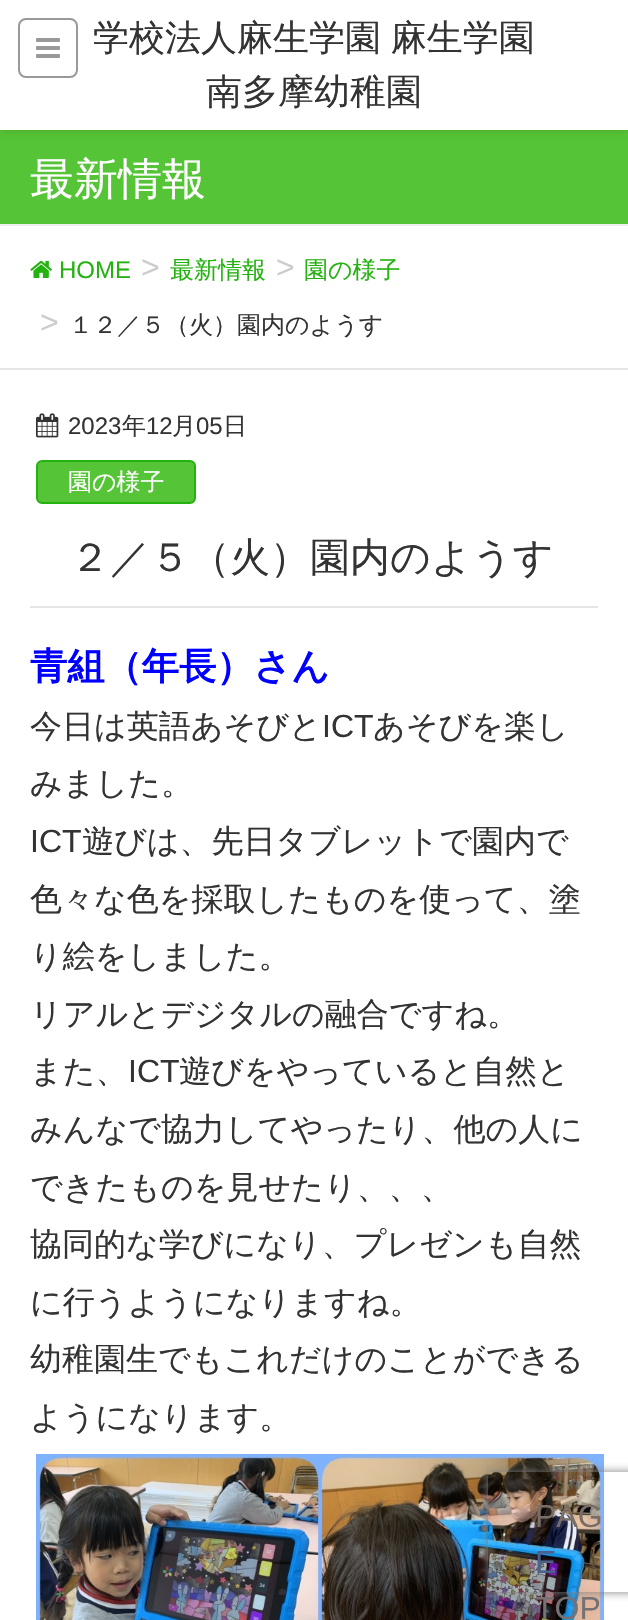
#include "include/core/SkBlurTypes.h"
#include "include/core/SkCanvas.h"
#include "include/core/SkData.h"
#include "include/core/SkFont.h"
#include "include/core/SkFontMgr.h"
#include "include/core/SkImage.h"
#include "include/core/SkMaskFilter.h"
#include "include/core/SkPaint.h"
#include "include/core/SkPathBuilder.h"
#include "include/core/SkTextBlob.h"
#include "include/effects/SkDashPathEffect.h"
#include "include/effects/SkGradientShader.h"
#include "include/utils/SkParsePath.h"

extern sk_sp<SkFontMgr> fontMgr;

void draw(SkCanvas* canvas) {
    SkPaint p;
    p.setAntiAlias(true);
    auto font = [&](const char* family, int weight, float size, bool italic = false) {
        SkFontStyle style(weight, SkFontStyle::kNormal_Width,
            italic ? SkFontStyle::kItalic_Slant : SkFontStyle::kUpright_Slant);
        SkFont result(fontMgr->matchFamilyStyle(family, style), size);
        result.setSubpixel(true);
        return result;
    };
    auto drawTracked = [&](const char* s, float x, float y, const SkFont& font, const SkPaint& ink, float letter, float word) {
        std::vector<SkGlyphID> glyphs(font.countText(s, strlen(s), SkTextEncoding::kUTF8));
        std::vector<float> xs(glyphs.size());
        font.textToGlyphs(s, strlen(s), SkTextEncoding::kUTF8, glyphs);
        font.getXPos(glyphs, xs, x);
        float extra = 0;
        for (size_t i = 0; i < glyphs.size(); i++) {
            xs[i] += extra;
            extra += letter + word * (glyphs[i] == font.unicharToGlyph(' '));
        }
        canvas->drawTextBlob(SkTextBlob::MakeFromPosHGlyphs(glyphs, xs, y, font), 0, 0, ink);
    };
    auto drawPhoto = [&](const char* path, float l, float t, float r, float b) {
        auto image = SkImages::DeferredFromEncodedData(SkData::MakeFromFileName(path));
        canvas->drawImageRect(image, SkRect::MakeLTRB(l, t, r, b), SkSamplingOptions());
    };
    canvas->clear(0xFFFFFFFF);
    p.setColor(0xFF55C436);
    canvas->drawRect(SkRect::MakeLTRB(0, 130, 628, 224), p);
    p.setColor(0x1A000000);
    p.setMaskFilter(SkMaskFilter::MakeBlur(kNormal_SkBlurStyle, 3));
    canvas->drawRect(SkRect::MakeLTRB(0, 2, 628, 132), p);
    p.setMaskFilter(nullptr);
    p.setColor(0xFFFFFFFF);
    canvas->drawRect(SkRect::MakeLTRB(0, 0, 628, 130), p);
    p.setStyle(SkPaint::kStroke_Style);
    p.setStrokeWidth(2);
    p.setColor(0xFF999999);
    canvas->drawRoundRect(SkRect::MakeLTRB(19, 19, 77, 77), 7, 7, p);
    drawPhoto("media/1.png", 36, 38, 60, 58);
    auto font1 = font("WenQuanYi Zen Hei", 500, 36);
    p.setStyle(SkPaint::kFill_Style);
    p.setColor(0xFF333333);
    drawTracked("学校法人麻生学園 麻生学園", 93, 50, font1, p, 0, -1);
    canvas->drawString("南多摩幼稚園", 206, 104, font1, p);
    p.setColor(0xFFEEEEEE);
    canvas->drawRect(SkRect::MakeLTRB(0, 224, 628, 226), p);
    auto font2 = font("WenQuanYi Zen Hei", 500, 44);
    p.setColor(0xFFFFFFFF);
    canvas->drawString("最新情報", 30, 194, font2, p);
    p.setColor(0xFFE5E5E5);
    canvas->drawRect(SkRect::MakeLTRB(0, 368, 628, 370), p);
    drawPhoto("media/2.png", 30, 260, 52, 278);
    auto font3 = font("Liberation Sans", 400, 24);
    p.setColor(0xFF23B210);
    canvas->drawString("HOME", 59, 278, font3, p);
    auto font4 = font("Liberation Sans", 400, 32);
    p.setColor(0xFFCCCCCC);
    canvas->drawString(">", 141, 278, font4, p);
    auto font5 = font("WenQuanYi Zen Hei", 500, 24);
    p.setColor(0xFF23B210);
    canvas->drawString("最新情報", 170, 278, font5, p);
    p.setColor(0xFFCCCCCC);
    canvas->drawString(">", 276, 278, font4, p);
    p.setColor(0xFF23B210);
    canvas->drawString("園の様子", 304, 278, font5, p);
    p.setColor(0xFFCCCCCC);
    canvas->drawString(">", 40, 333, font4, p);
    p.setColor(0xFF333333);
    canvas->drawString("１２／５（火）園内のようす", 69, 333, font5, p);
    p.setColor(0xFFE5E5E5);
    canvas->drawRect(SkRect::MakeLTRB(30, 606, 598, 608), p);
    drawPhoto("media/3.png", 36, 413, 59, 438);
    p.setColor(0xFF333333);
    canvas->drawString("2023", 68, 434, font3, p);
    canvas->drawString("年", 122, 434, font5, p);
    canvas->drawString("12", 146, 434, font3, p);
    canvas->drawString("月", 172, 434, font5, p);
    canvas->drawString("05", 196, 434, font3, p);
    canvas->drawString("日", 223, 434, font5, p);
    p.setColor(0xFF55C436);
    canvas->drawRoundRect(SkRect::MakeLTRB(37, 461, 195, 503), 5, 5, p);
    p.setStyle(SkPaint::kStroke_Style);
    p.setColor(0xFF23B210);
    canvas->drawRoundRect(SkRect::MakeLTRB(37, 461, 195, 503), 5, 5, p);
    p.setStyle(SkPaint::kFill_Style);
    p.setColor(0xFFFFFFFF);
    canvas->drawString("園の様子", 68, 490, font5, p);
    auto font6 = font("Noto Sans", 500, 40);
    p.setColor(0xFF55C436);
    canvas->drawString("１", 30, 571, font6, p);
    auto font7 = font("WenQuanYi Zen Hei", 500, 40);
    p.setColor(0xFF333333);
    canvas->drawString("２／５（火）園内のようす", 70, 571, font7, p);
    auto font8 = font("WenQuanYi Zen Hei", 700, 37.25f);
    p.setColor(0xFF0000FF);
    canvas->drawString("青組（年長）さん", 30, 679, font8, p);
    auto font9 = font("WenQuanYi Zen Hei", 500, 32);
    p.setColor(0xFF333333);
    canvas->drawString("今日は英語あそびと", 30, 737, font9, p);
    canvas->drawString("ICT", 322, 737, font4, p);
    canvas->drawString("あそびを楽し", 373, 737, font9, p);
    canvas->drawString("みました。", 30, 794, font9, p);
    canvas->drawString("ICT", 30, 852, font4, p);
    {
        const struct { const char* s; float x, y; } items[] = {
            {"遊びは、先日タブレットで園内で", 82, 852},
            {"色々な色を採取したものを使って、塗", 30, 910},
            {"り絵をしました。", 30, 967},
            {"リアルとデジタルの融合ですね。", 30, 1025},
            {"また、", 30, 1082},
        };
        for (auto [s, x, y] : items) {
            canvas->drawString(s, x, y, font9, p);
        }
    }
    canvas->drawString("ICT", 128, 1082, font4, p);
    {
        const struct { const char* s; float x, y; } items[] = {
            {"遊びをやっていると自然と", 179, 1082},
            {"みんなで協力してやったり、他の人に", 30, 1140},
            {"できたものを見せたり、、、", 30, 1198},
            {"協同的な学びになり、プレゼンも自然", 30, 1255},
            {"に行うようになりますね。", 30, 1313},
            {"幼稚園生でもこれだけのことができる", 30, 1370},
            {"ようになります。", 30, 1428},
        };
        for (auto [s, x, y] : items) {
            canvas->drawString(s, x, y, font9, p);
        }
    }
    drawPhoto("media/4.png", 36, 1454, 604, 1620);
    canvas->save();
    canvas->clipPath(SkPathBuilder(SkPathFillType::kEvenOdd).moveTo(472, 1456).lineTo(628, 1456).lineTo(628, 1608).lineTo(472, 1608).close().moveTo(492, 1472).lineTo(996, 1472).cubicTo(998, 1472, 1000, 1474, 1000, 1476).lineTo(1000, 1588).cubicTo(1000, 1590, 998, 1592, 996, 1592).lineTo(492, 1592).cubicTo(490, 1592, 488, 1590, 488, 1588).lineTo(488, 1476).cubicTo(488, 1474, 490, 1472, 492, 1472).close().detach(), true);
    p.setColor(0xFF808080);
    p.setMaskFilter(SkMaskFilter::MakeBlur(kNormal_SkBlurStyle, 5));
    canvas->drawRoundRect(SkRect::MakeLTRB(488, 1472, 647, 1592), 4, 4, p);
    p.setMaskFilter(nullptr);
    canvas->restore();
    p.setColor(0xFF7A6D65);
    canvas->drawString("PAG", 535, 1527, font4, p);
    p.setColor(0xFF4B608B);
    canvas->drawString("E", 535, 1573, font4, p);
    p.setColor(0xFF767173);
    canvas->drawString("TOP", 535, 1619, font4, p);
}
